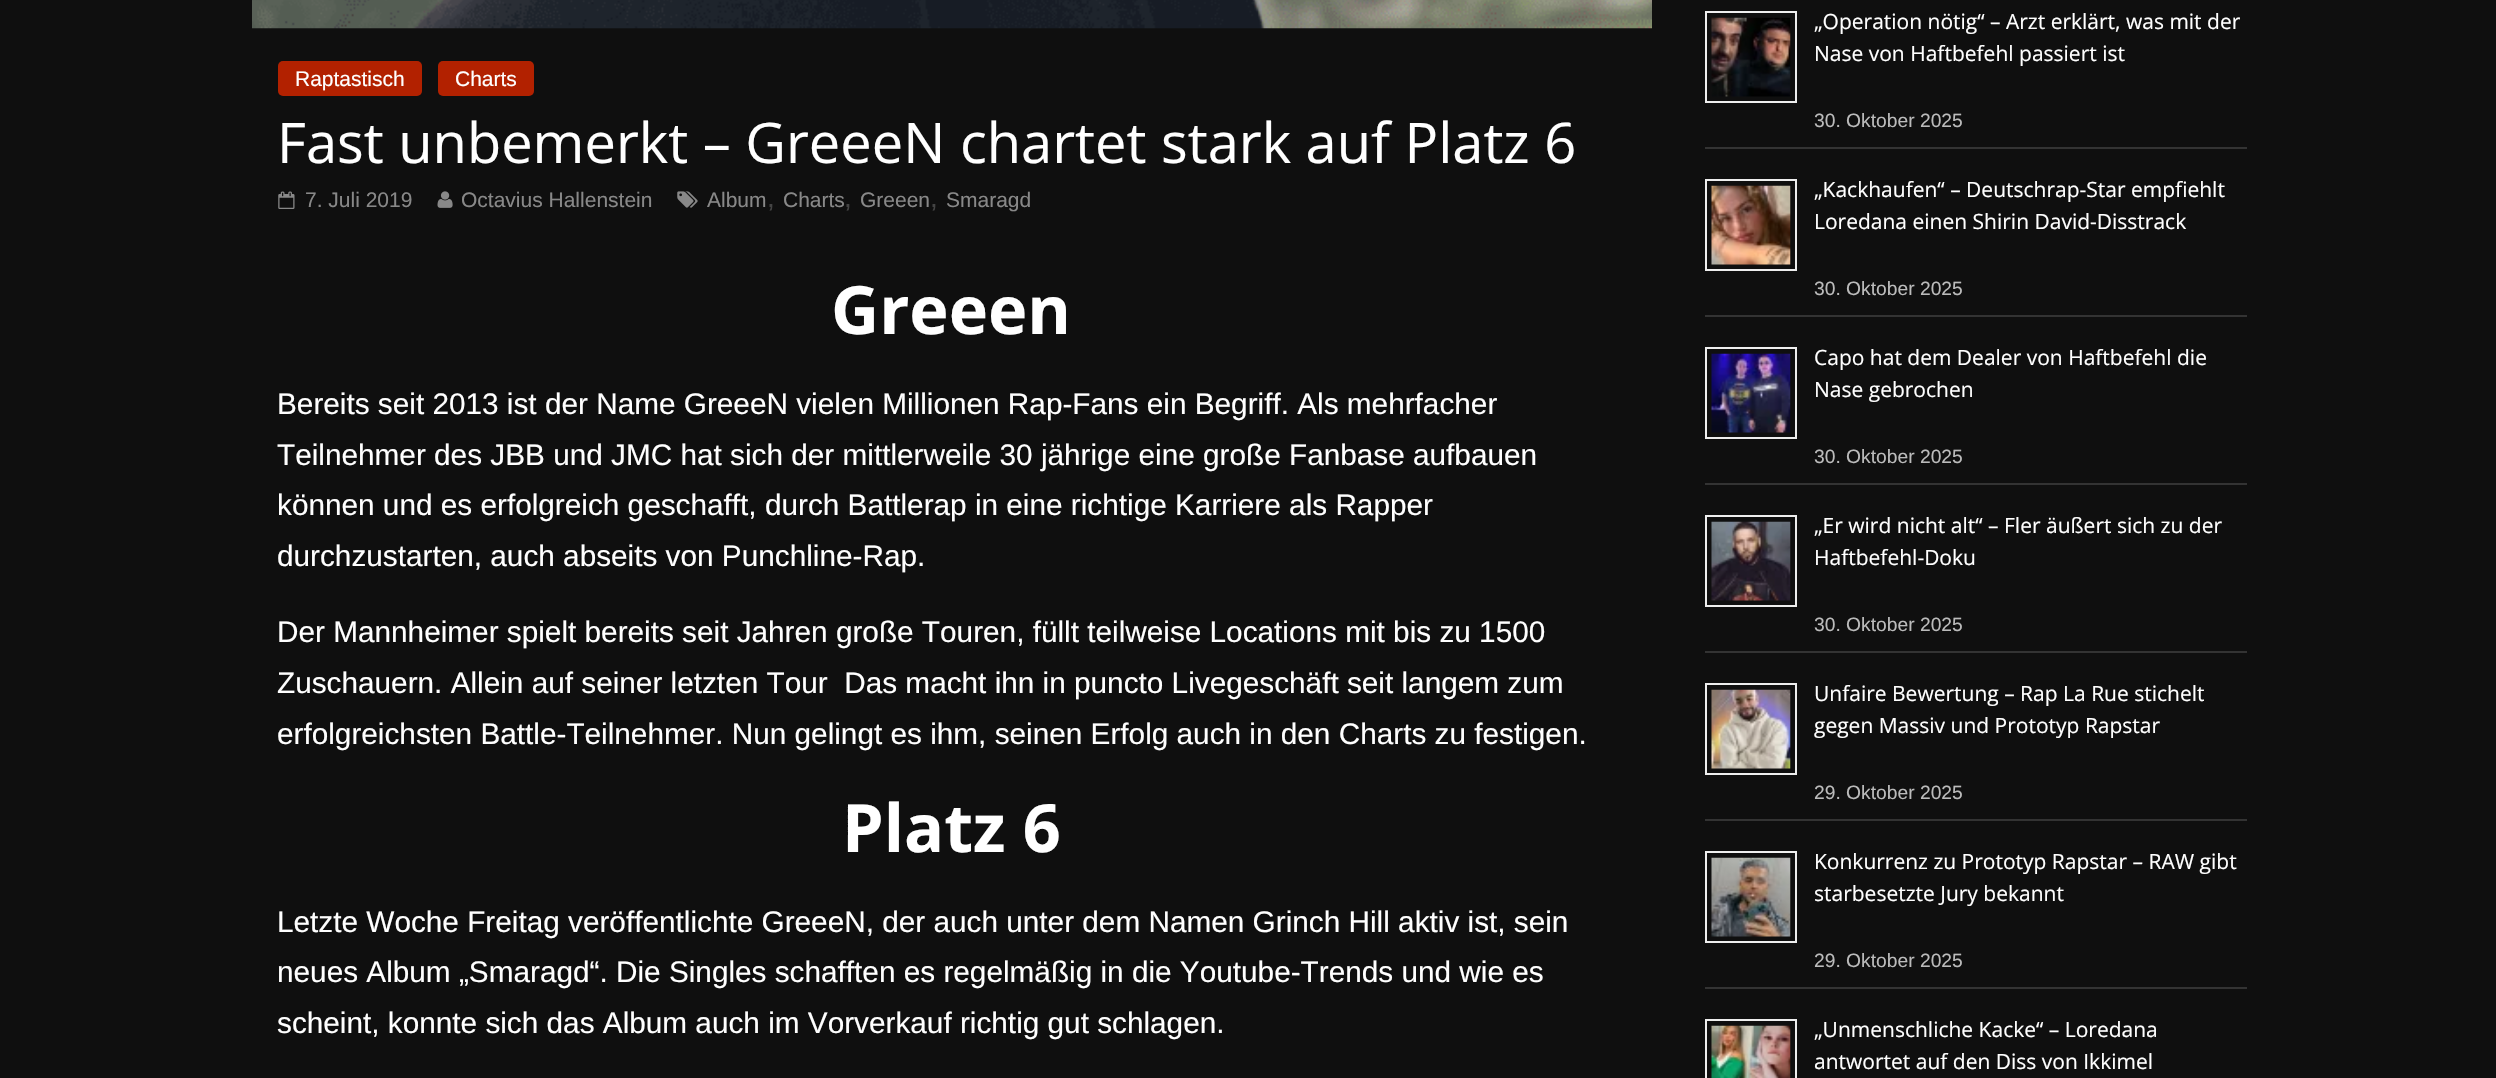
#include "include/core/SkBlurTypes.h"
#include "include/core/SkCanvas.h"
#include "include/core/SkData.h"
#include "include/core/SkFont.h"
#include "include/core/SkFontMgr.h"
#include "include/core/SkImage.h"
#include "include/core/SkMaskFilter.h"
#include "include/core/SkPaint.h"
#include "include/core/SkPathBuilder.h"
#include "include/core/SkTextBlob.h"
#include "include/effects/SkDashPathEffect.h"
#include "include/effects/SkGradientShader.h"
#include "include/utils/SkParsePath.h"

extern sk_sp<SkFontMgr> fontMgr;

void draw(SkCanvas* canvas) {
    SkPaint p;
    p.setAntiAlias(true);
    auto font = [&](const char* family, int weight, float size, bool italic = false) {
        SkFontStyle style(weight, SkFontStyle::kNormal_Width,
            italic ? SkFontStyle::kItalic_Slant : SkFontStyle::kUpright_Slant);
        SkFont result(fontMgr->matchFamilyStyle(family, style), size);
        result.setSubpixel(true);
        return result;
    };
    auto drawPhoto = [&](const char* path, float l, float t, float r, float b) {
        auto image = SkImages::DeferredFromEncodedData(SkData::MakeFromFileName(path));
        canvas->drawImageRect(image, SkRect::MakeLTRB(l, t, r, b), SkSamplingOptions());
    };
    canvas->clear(0xFF0F0F0F);
    drawPhoto("media/1.png", 252, 0, 1652, 29);
    p.setColor(0xFFB22100);
    canvas->drawRoundRect(SkRect::MakeLTRB(278, 61, 422, 96), 5, 5, p);
    auto font1 = font("Liberation Sans", 400, 21);
    p.setColor(0xFFFFFFFF);
    canvas->drawString("Raptastisch", 295, 86, font1, p);
    p.setColor(0xFFB22100);
    canvas->drawRoundRect(SkRect::MakeLTRB(438, 61, 534, 96), 5, 5, p);
    p.setColor(0xFFFFFFFF);
    canvas->drawString("Charts", 455, 86, font1, p);
    auto font2 = font("Open Sans", 400, 56);
    canvas->drawString("Fast unbemerkt – GreeeN chartet stark auf Platz 6", 277, 163, font2, p);
    drawPhoto("media/2.png", 278, 191, 295, 209);
    p.setColor(0xFF888888);
    canvas->drawString("7. Juli 2019", 305, 207, font1, p);
    drawPhoto("media/3.png", 437, 191, 453, 208);
    canvas->drawString("Octavius Hallenstein", 461, 207, font1, p);
    drawPhoto("media/4.png", 677, 191, 698, 208);
    canvas->drawString("Album", 707, 207, font1, p);
    auto font3 = font("Liberation Sans", 400, 28);
    p.setColor(0xFF444444);
    canvas->drawString(",", 767, 207, font3, p);
    p.setColor(0xFF888888);
    canvas->drawString("Charts", 783, 207, font1, p);
    p.setColor(0xFF444444);
    canvas->drawString(",", 844, 207, font3, p);
    p.setColor(0xFF888888);
    canvas->drawString("Greeen", 860, 207, font1, p);
    p.setColor(0xFF444444);
    canvas->drawString(",", 930, 207, font3, p);
    p.setColor(0xFF888888);
    canvas->drawString("Smaragd", 946, 207, font1, p);
    auto font4 = font("Open Sans", 700, 66.5f);
    p.setColor(0xFFFFFFFF);
    canvas->drawString("Greeen", 831, 334, font4, p);
    auto font5 = font("Liberation Sans", 400, 29.75f);
    {
        const struct { const char* s; float x, y; } items[] = {
            {"Bereits seit 2013 ist der Name GreeeN vielen Millionen Rap-Fans ein Begriff. Als mehrfacher", 277, 414},
            {"Teilnehmer des JBB und JMC hat sich der mittlerweile 30 jährige eine große Fanbase aufbauen", 277, 465},
            {"können und es erfolgreich geschafft, durch Battlerap in eine richtige Karriere als Rapper", 277, 515},
            {"durchzustarten, auch abseits von Punchline-Rap.", 277, 566},
            {"Der Mannheimer spielt bereits seit Jahren große Touren, füllt teilweise Locations mit bis zu 1500", 277, 642},
            {"Zuschauern. Allein auf seiner letzten Tour  Das macht ihn in puncto Livegeschäft seit langem zum", 277, 693},
            {"erfolgreichsten Battle-Teilnehmer. Nun gelingt es ihm, seinen Erfolg auch in den Charts zu festigen.", 277, 744},
        };
        for (auto [s, x, y] : items) {
            canvas->drawString(s, x, y, font5, p);
        }
    }
    canvas->drawString("Platz 6", 842, 852, font4, p);
    {
        const struct { const char* s; float x, y; } items[] = {
            {"Letzte Woche Freitag veröffentlichte GreeeN, der auch unter dem Namen Grinch Hill aktiv ist, sein", 277, 932},
            {"neues Album „Smaragd“. Die Singles schafften es regelmäßig in die Youtube-Trends und wie es", 277, 982},
            {"scheint, konnte sich das Album auch im Vorverkauf richtig gut schlagen.", 277, 1033},
        };
        for (auto [s, x, y] : items) {
            canvas->drawString(s, x, y, font5, p);
        }
    }
    p.setColor(0xFF333333);
    canvas->drawRect(SkRect::MakeLTRB(1705, 147, 2247, 149), p);
    p.setStyle(SkPaint::kStroke_Style);
    p.setStrokeWidth(2);
    p.setColor(0xFFEEEEEE);
    canvas->drawRect(SkRect::MakeLTRB(1706, 12, 1796, 102), p);
    drawPhoto("media/5.png", 1711, 17, 1791, 97);
    auto font6 = font("Open Sans", 400, 21);
    p.setStyle(SkPaint::kFill_Style);
    p.setColor(0xFFFFFFFF);
    canvas->drawString("„Operation nötig“ – Arzt erklärt, was mit der", 1814, 29, font6, p);
    canvas->drawString("Nase von Haftbefehl passiert ist", 1814, 61, font6, p);
    auto font7 = font("Liberation Sans", 400, 19.25f);
    p.setColor(0xFFBBBBBB);
    canvas->drawString("30. Oktober 2025", 1814, 127, font7, p);
    p.setColor(0xFF333333);
    canvas->drawRect(SkRect::MakeLTRB(1705, 315, 2247, 317), p);
    p.setStyle(SkPaint::kStroke_Style);
    p.setColor(0xFFEEEEEE);
    canvas->drawRect(SkRect::MakeLTRB(1706, 180, 1796, 270), p);
    drawPhoto("media/6.png", 1711, 185, 1791, 265);
    p.setStyle(SkPaint::kFill_Style);
    p.setColor(0xFFFFFFFF);
    canvas->drawString("„Kackhaufen“ – Deutschrap-Star empfiehlt", 1814, 197, font6, p);
    canvas->drawString("Loredana einen Shirin David-Disstrack", 1814, 229, font6, p);
    p.setColor(0xFFBBBBBB);
    canvas->drawString("30. Oktober 2025", 1814, 295, font7, p);
    p.setColor(0xFF333333);
    canvas->drawRect(SkRect::MakeLTRB(1705, 483, 2247, 485), p);
    p.setStyle(SkPaint::kStroke_Style);
    p.setColor(0xFFEEEEEE);
    canvas->drawRect(SkRect::MakeLTRB(1706, 348, 1796, 438), p);
    drawPhoto("media/7.png", 1711, 353, 1791, 433);
    p.setStyle(SkPaint::kFill_Style);
    p.setColor(0xFFFFFFFF);
    canvas->drawString("Capo hat dem Dealer von Haftbefehl die", 1814, 365, font6, p);
    canvas->drawString("Nase gebrochen", 1814, 397, font6, p);
    p.setColor(0xFFBBBBBB);
    canvas->drawString("30. Oktober 2025", 1814, 463, font7, p);
    p.setColor(0xFF333333);
    canvas->drawRect(SkRect::MakeLTRB(1705, 651, 2247, 653), p);
    p.setStyle(SkPaint::kStroke_Style);
    p.setColor(0xFFEEEEEE);
    canvas->drawRect(SkRect::MakeLTRB(1706, 516, 1796, 606), p);
    drawPhoto("media/8.png", 1711, 521, 1791, 601);
    p.setStyle(SkPaint::kFill_Style);
    p.setColor(0xFFFFFFFF);
    canvas->drawString("„Er wird nicht alt“ – Fler äußert sich zu der", 1814, 533, font6, p);
    canvas->drawString("Haftbefehl-Doku", 1814, 565, font6, p);
    p.setColor(0xFFBBBBBB);
    canvas->drawString("30. Oktober 2025", 1814, 631, font7, p);
    p.setColor(0xFF333333);
    canvas->drawRect(SkRect::MakeLTRB(1705, 819, 2247, 821), p);
    p.setStyle(SkPaint::kStroke_Style);
    p.setColor(0xFFEEEEEE);
    canvas->drawRect(SkRect::MakeLTRB(1706, 684, 1796, 774), p);
    drawPhoto("media/9.png", 1711, 689, 1791, 769);
    p.setStyle(SkPaint::kFill_Style);
    p.setColor(0xFFFFFFFF);
    canvas->drawString("Unfaire Bewertung – Rap La Rue stichelt", 1814, 701, font6, p);
    canvas->drawString("gegen Massiv und Prototyp Rapstar", 1814, 733, font6, p);
    p.setColor(0xFFBBBBBB);
    canvas->drawString("29. Oktober 2025", 1814, 799, font7, p);
    p.setColor(0xFF333333);
    canvas->drawRect(SkRect::MakeLTRB(1705, 987, 2247, 989), p);
    p.setStyle(SkPaint::kStroke_Style);
    p.setColor(0xFFEEEEEE);
    canvas->drawRect(SkRect::MakeLTRB(1706, 852, 1796, 942), p);
    drawPhoto("media/10.png", 1711, 857, 1791, 937);
    p.setStyle(SkPaint::kFill_Style);
    p.setColor(0xFFFFFFFF);
    canvas->drawString("Konkurrenz zu Prototyp Rapstar – RAW gibt", 1814, 869, font6, p);
    canvas->drawString("starbesetzte Jury bekannt", 1814, 901, font6, p);
    p.setColor(0xFFBBBBBB);
    canvas->drawString("29. Oktober 2025", 1814, 967, font7, p);
    p.setStyle(SkPaint::kStroke_Style);
    p.setColor(0xFFEEEEEE);
    canvas->drawRect(SkRect::MakeLTRB(1706, 1020, 1796, 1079), p);
    drawPhoto("media/11.png", 1711, 1025, 1791, 1078);
    p.setStyle(SkPaint::kFill_Style);
    p.setColor(0xFFFFFFFF);
    canvas->drawString("„Unmenschliche Kacke“ – Loredana", 1814, 1037, font6, p);
    canvas->drawString("antwortet auf den Diss von Ikkimel", 1814, 1069, font6, p);
}
